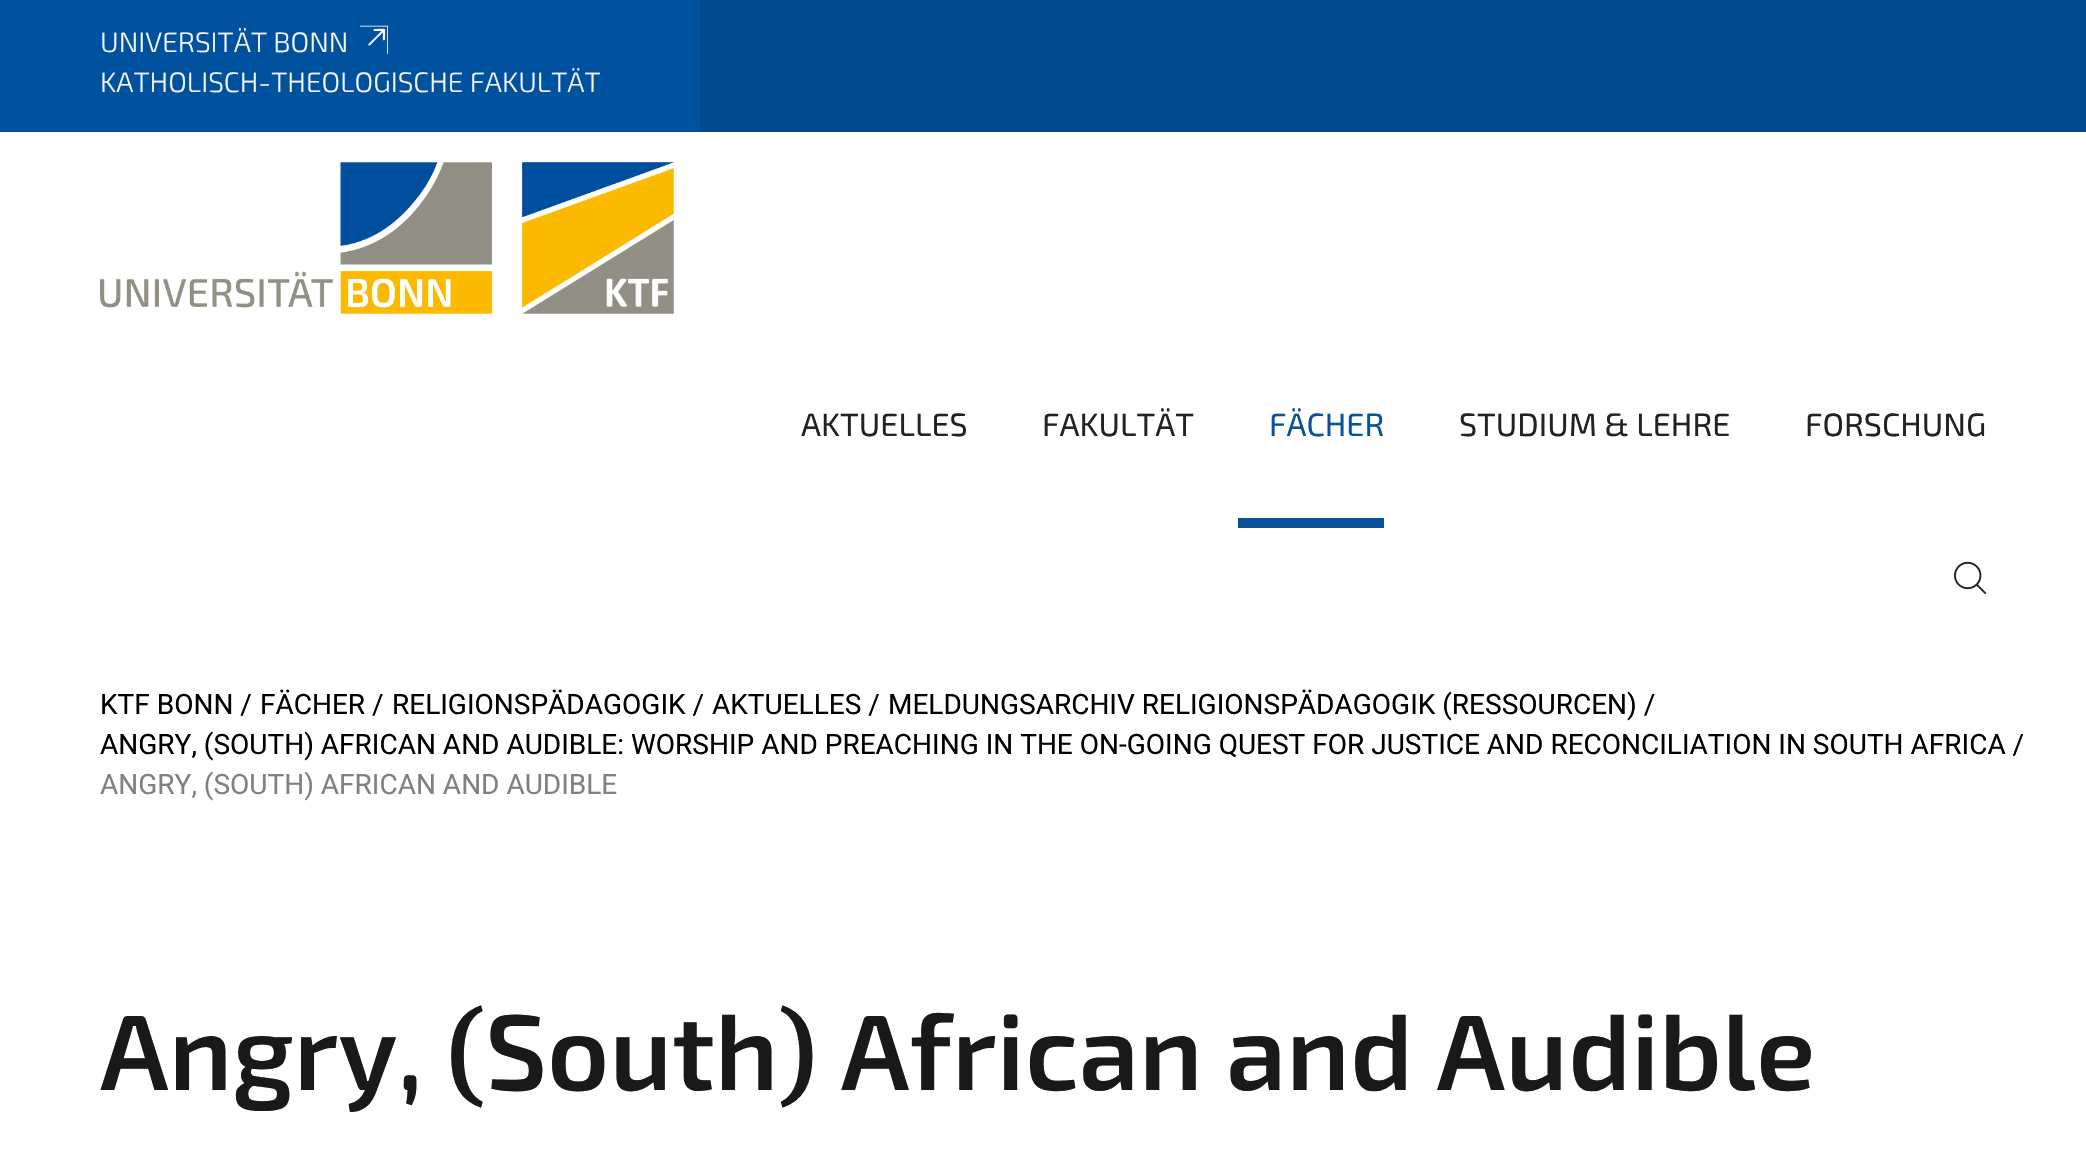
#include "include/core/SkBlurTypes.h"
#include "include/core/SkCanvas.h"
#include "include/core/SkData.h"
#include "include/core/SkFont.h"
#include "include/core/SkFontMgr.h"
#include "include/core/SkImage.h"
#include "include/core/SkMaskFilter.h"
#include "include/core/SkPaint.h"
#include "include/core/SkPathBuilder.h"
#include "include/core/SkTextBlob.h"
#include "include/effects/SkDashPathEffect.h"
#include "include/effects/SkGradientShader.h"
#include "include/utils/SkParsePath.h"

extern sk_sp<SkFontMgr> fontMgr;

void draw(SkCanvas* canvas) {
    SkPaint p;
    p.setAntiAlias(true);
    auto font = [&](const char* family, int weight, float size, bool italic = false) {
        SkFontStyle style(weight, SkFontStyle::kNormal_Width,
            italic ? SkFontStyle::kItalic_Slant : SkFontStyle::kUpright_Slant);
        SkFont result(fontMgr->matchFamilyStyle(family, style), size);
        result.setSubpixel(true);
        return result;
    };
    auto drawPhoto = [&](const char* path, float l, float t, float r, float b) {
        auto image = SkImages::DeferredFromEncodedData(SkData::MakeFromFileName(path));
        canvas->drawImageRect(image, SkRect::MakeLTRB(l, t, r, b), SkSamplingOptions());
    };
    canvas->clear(0xFFFFFFFF);
    p.setColor(0xFF00498F);
    canvas->drawRect(SkRect::MakeLTRB(700, 0, 2086, 132), p);
    p.setColor(0xFF00529F);
    canvas->drawRect(SkRect::MakeLTRB(0, 0, 700, 132), p);
    auto font1 = font("Exo 2", 300, 28);
    p.setColor(0xFFF6F7F9);
    canvas->drawString("UNIVERSITÄT BONN", 100, 52, font1, p);
    drawPhoto("media/1.png", 360, 25, 388, 54);
    canvas->drawString("KATHOLISCH-THEOLOGISCHE FAKULTÄT", 100, 92, font1, p);
    drawPhoto("media/2.png", 100, 162, 674, 314);
    auto font2 = font("Exo 2", 400, 32.25f);
    p.setColor(0xFF222222);
    canvas->drawString("AKTUELLES", 801, 436, font2, p);
    canvas->drawString("FAKULTÄT", 1042, 436, font2, p);
    p.setColor(0xFF07529A);
    canvas->drawRect(SkRect::MakeLTRB(1238, 518, 1384, 528), p);
    canvas->drawString("FÄCHER", 1269, 436, font2, p);
    p.setColor(0xFF222222);
    canvas->drawString("STUDIUM & LEHRE", 1459, 436, font2, p);
    canvas->drawString("FORSCHUNG", 1805, 436, font2, p);
    drawPhoto("media/3.png", 1954, 561, 1987, 594);
    auto font3 = font("Roboto", 400, 28);
    p.setColor(0xFF000000);
    {
        const struct { const char* s; float x, y; } items[] = {
            {"KTF BONN /", 100, 714},
            {"FÄCHER /", 260, 714},
            {"RELIGIONSPÄDAGOGIK /", 392, 714},
            {"AKTUELLES /", 712, 714},
            {"MELDUNGSARCHIV RELIGIONSPÄDAGOGIK (RESSOURCEN) /", 888, 714},
            {"ANGRY, (SOUTH) AFRICAN AND AUDIBLE: WORSHIP AND PREACHING IN THE ON-GOING QUEST FOR JUSTICE AND RECONCILIATION IN SOUTH AFRICA /", 100, 754},
        };
        for (auto [s, x, y] : items) {
            canvas->drawString(s, x, y, font3, p);
        }
    }
    p.setColor(0xFF808080);
    canvas->drawString("ANGRY, (SOUTH) AFRICAN AND AUDIBLE", 100, 794, font3, p);
    auto font4 = font("Exo 2", 600, 107.4f);
    p.setColor(0xFF1A181B);
    canvas->drawString("Angry, (South) African and Audible", 100, 1090, font4, p);
}
